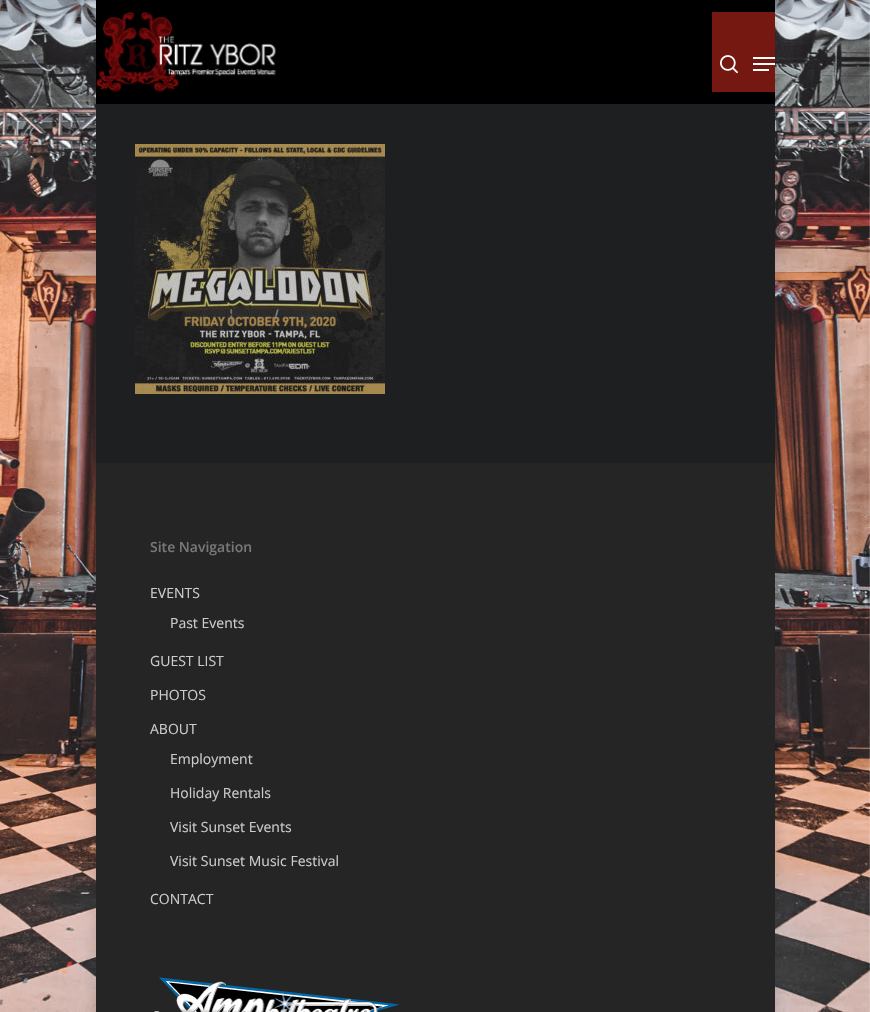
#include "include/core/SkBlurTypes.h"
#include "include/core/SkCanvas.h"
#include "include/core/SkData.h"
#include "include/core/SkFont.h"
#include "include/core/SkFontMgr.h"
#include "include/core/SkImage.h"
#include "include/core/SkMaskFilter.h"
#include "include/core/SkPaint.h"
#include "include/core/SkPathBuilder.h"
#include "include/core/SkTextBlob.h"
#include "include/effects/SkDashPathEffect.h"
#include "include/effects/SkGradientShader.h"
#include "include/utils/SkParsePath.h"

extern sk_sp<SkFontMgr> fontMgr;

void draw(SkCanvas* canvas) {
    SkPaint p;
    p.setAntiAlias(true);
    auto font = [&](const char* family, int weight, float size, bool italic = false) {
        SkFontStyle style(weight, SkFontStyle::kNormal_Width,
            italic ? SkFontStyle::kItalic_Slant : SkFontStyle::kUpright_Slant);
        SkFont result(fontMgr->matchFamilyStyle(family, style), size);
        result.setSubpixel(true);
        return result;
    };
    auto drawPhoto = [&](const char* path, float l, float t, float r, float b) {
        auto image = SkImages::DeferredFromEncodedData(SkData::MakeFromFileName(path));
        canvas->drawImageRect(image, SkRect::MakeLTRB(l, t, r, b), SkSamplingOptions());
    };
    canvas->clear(0xFFFFFFFF);
    drawPhoto("media/1.png", 0, 0, 870, 1012);
    p.setColor(0x26000000);
    p.setMaskFilter(SkMaskFilter::MakeBlur(kNormal_SkBlurStyle, 7.5f));
    canvas->drawRect(SkRect::MakeLTRB(96, 0, 775, 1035), p);
    p.setMaskFilter(nullptr);
    p.setColor(0xFF000000);
    canvas->drawRect(SkRect::MakeLTRB(96, 0, 775, 104), p);
    drawPhoto("media/2.png", 96, 12, 276, 92);
    p.setColor(0xFF751811);
    canvas->drawRect(SkRect::MakeLTRB(712, 12, 775, 92), p);
    drawPhoto("media/3.png", 720, 55, 738, 74);
    {
        const struct { float l, t, r, b; SkColor color; } items[] = {
            {753, 57, 775, 59, 0xFFFFFFFF},
            {753, 69, 769, 71, 0xFFFFFFFF},
            {753, 63, 775, 65, 0xFFFFFFFF},
            {96, 104, 775, 463, 0xFF1E1F20},
        };
        for (auto [l, t, r, b, color] : items) {
            p.setColor(color);
            canvas->drawRect(SkRect::MakeLTRB(l, t, r, b), p);
        }
    }
    drawPhoto("media/4.png", 135, 144, 385, 394);
    p.setColor(0xFF252525);
    canvas->drawRect(SkRect::MakeLTRB(96, 463, 775, 1012), p);
    auto font1 = font("Open Sans", 600, 14);
    p.setColor(0xFF777777);
    canvas->drawString("Site Navigation", 150, 552, font1, p);
    auto font2 = font("Open Sans", 400, 14);
    p.setColor(0xFFCCCCCC);
    {
        const struct { const char* s; float x, y; } items[] = {
            {"EVENTS", 150, 598},
            {"Past Events", 170, 628},
            {"GUEST LIST", 150, 666},
            {"PHOTOS", 150, 700},
            {"ABOUT", 150, 734},
            {"Employment", 170, 764},
            {"Holiday Rentals", 170, 798},
            {"Visit Sunset Events", 170, 832},
            {"Visit Sunset Music Festival", 170, 866},
            {"CONTACT", 150, 904},
        };
        for (auto [s, x, y] : items) {
            canvas->drawString(s, x, y, font2, p);
        }
    }
    drawPhoto("media/5.png", 154, 977, 400, 1012);
}
